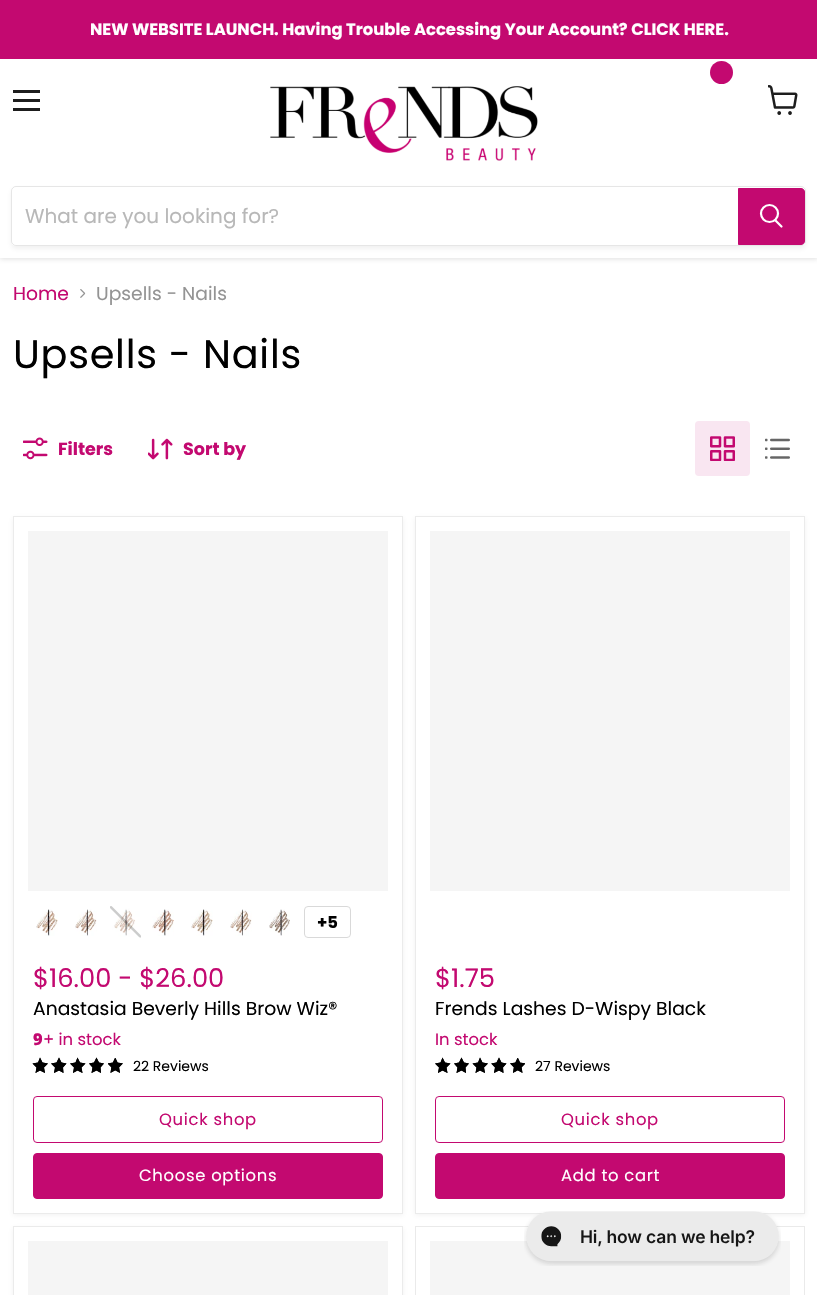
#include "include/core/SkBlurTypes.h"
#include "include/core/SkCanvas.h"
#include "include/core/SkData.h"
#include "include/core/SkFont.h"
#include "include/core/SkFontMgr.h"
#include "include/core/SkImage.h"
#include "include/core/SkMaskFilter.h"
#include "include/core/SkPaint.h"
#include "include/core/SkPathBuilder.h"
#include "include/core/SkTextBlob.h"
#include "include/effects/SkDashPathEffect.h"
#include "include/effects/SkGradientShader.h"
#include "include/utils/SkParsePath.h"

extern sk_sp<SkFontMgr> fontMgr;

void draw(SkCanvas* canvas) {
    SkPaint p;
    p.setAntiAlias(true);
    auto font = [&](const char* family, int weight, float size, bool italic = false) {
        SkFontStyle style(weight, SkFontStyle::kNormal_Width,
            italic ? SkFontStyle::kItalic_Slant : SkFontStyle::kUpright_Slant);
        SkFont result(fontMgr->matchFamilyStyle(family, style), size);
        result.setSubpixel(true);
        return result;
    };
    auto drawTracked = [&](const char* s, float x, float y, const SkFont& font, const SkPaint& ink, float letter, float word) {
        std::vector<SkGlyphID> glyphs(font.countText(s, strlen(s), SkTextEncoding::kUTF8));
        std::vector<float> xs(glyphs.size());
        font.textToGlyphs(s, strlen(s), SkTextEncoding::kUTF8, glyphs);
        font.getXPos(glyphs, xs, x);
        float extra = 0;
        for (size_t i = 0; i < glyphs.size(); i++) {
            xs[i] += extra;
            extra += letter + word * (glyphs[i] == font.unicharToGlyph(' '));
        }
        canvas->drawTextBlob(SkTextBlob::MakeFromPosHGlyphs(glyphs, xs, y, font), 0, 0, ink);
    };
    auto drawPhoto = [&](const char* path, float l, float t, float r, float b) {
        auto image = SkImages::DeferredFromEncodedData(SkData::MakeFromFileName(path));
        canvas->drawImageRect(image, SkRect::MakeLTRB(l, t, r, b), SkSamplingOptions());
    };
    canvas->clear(0xFFFFFFFF);
    p.setColor(0x40808080);
    p.setMaskFilter(SkMaskFilter::MakeBlur(kNormal_SkBlurStyle, 2.5f));
    canvas->drawRect(SkRect::MakeLTRB(0, 60, 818, 259), p);
    p.setMaskFilter(nullptr);
    p.setColor(0xFFC30970);
    canvas->drawRect(SkRect::MakeLTRB(0, 0, 817, 59), p);
    auto font1 = font("Poppins", 700, 16.4f);
    p.setColor(0xFFFFFFFF);
    canvas->drawString("NEW WEBSITE LAUNCH. Having Trouble Accessing Your Account? CLICK HERE.", 90, 35, font1, p);
    {
        const struct { float l, t, r, b; SkColor color; } items[] = {
            {0, 59, 817, 258, 0xFFFFFFFF},
            {13, 90, 40, 93, 0xFF1D1D1D},
            {13, 99, 40, 102, 0xFF1D1D1D},
            {13, 108, 40, 111, 0xFF1D1D1D},
        };
        for (auto [l, t, r, b, color] : items) {
            p.setColor(color);
            canvas->drawRect(SkRect::MakeLTRB(l, t, r, b), p);
        }
    }
    p.setColor(0xFFC30970);
    canvas->drawCircle(721.5f, 72.5f, 11.5f, p);
    drawPhoto("media/1.png", 768, 85, 798, 115);
    drawPhoto("media/2.png", 270, 86, 538, 161);
    canvas->save();
    canvas->clipPath(SkPathBuilder(SkPathFillType::kEvenOdd).moveTo(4, 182).lineTo(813, 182).lineTo(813, 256).lineTo(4, 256).close().moveTo(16, 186).lineTo(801, 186).cubicTo(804, 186, 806, 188, 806, 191).lineTo(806, 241).cubicTo(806, 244, 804, 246, 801, 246).lineTo(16, 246).cubicTo(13, 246, 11, 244, 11, 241).lineTo(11, 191).cubicTo(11, 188, 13, 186, 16, 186).close().detach(), true);
    p.setColor(0x1C808080);
    p.setMaskFilter(SkMaskFilter::MakeBlur(kNormal_SkBlurStyle, 2));
    canvas->drawRoundRect(SkRect::MakeLTRB(11, 189, 806, 249), 5, 5, p);
    p.setMaskFilter(nullptr);
    canvas->restore();
    p.setStyle(SkPaint::kStroke_Style);
    p.setStrokeWidth(1);
    p.setColor(0x33808080);
    canvas->drawRoundRect(SkRect::MakeLTRB(11.5f, 186.5f, 805.5f, 245.5f), 4.5f, 4.5f, p);
    auto font2 = font("Poppins", 400, 20);
    p.setStyle(SkPaint::kFill_Style);
    p.setColor(0xFFB8B8B8);
    canvas->drawString("What are you looking for?", 25, 223, font2, p);
    p.setColor(0xFFC30970);
    canvas->drawPath(SkPathBuilder().moveTo(738.5f, 188.5f).lineTo(801, 188.5f).cubicTo(803, 188.5f, 804.5f, 190, 804.5f, 192).lineTo(804.5f, 241).cubicTo(804.5f, 243, 803, 244.5f, 801, 244.5f).lineTo(738.5f, 244.5f).close().detach(), p);
    p.setStyle(SkPaint::kStroke_Style);
    canvas->drawPath(SkPathBuilder().moveTo(738.5f, 188.5f).lineTo(801, 188.5f).cubicTo(803, 188.5f, 804.5f, 190, 804.5f, 192).lineTo(804.5f, 241).cubicTo(804.5f, 243, 803, 244.5f, 801, 244.5f).lineTo(738.5f, 244.5f).close().detach(), p);
    p.setStrokeWidth(2.2f);
    p.setStrokeCap(SkPaint::kRound_Cap);
    p.setColor(0xFFFFFFFF);
    canvas->drawPath(SkPathBuilder().moveTo(781.5f, 226.5f).lineTo(775.5f, 220.5f).detach(), p);
    p.setStrokeCap(SkPaint::kButt_Cap);
    canvas->drawCircle(769.5f, 213.5f, 8.5f, p);
    auto font3 = font("Poppins", 400, 18.75f);
    p.setStyle(SkPaint::kFill_Style);
    p.setColor(0xFFC30970);
    canvas->drawString("Home", 13, 300, font3, p);
    drawPhoto("media/3.png", 80, 289, 86, 298);
    p.setColor(0xFF949494);
    canvas->drawString("Upsells - Nails", 96, 300, font3, p);
    auto font4 = font("Poppins", 400, 39.75f);
    p.setColor(0xFF000000);
    drawTracked("Upsells - Nails", 13, 368, font4, p, 0.75f, 0);
    drawPhoto("media/4.png", 23, 437, 48, 460);
    auto font5 = font("Poppins", 700, 17.5f);
    p.setColor(0xFFC30970);
    canvas->drawString("Filters", 58, 455, font5, p);
    drawPhoto("media/5.png", 148, 438, 173, 460);
    canvas->drawString("Sort by", 183, 455, font5, p);
    p.setColor(0xFFF9E6F1);
    canvas->drawRoundRect(SkRect::MakeLTRB(695, 421, 750, 476), 4, 4, p);
    drawPhoto("media/6.png", 710, 436, 735, 461);
    drawPhoto("media/7.png", 765, 438, 790, 459);
    p.setColor(0x1C808080);
    p.setMaskFilter(SkMaskFilter::MakeBlur(kNormal_SkBlurStyle, 2.5f));
    canvas->drawRect(SkRect::MakeLTRB(13, 518, 403, 1215), p);
    p.setMaskFilter(nullptr);
    p.setColor(0xFFFFFFFF);
    canvas->drawRect(SkRect::MakeLTRB(13.5f, 516.5f, 402.5f, 1213.5f), p);
    p.setStyle(SkPaint::kStroke_Style);
    p.setStrokeWidth(1);
    p.setColor(0xFFEBEBEB);
    canvas->drawRect(SkRect::MakeLTRB(13.5f, 516.5f, 402.5f, 1213.5f), p);
    p.setStyle(SkPaint::kFill_Style);
    p.setColor(0xFFF5F5F5);
    canvas->drawRect(SkRect::MakeLTRB(28, 531, 388, 891), p);
    drawPhoto("media/8.png", 36, 909, 58, 936);
    drawPhoto("media/9.png", 75, 909, 97, 936);
    drawPhoto("media/10.png", 110, 906, 141, 938);
    drawPhoto("media/11.png", 110, 906, 141, 938);
    drawPhoto("media/12.png", 152, 909, 174, 936);
    drawPhoto("media/13.png", 191, 909, 213, 936);
    drawPhoto("media/14.png", 230, 909, 252, 936);
    drawPhoto("media/15.png", 269, 909, 290, 936);
    p.setStyle(SkPaint::kStroke_Style);
    p.setColor(0xFFD9D9D9);
    canvas->drawRoundRect(SkRect::MakeLTRB(304.5f, 906.5f, 350.5f, 937.5f), 3.5f, 3.5f, p);
    p.setStyle(SkPaint::kFill_Style);
    p.setColor(0xFF000000);
    canvas->drawString("+5", 317, 928, font1, p);
    auto font6 = font("Poppins", 400, 25.75f);
    p.setColor(0xFFC30970);
    canvas->drawString("$16.00 - $26.00", 33, 987, font6, p);
    p.setColor(0xFF000000);
    canvas->drawString("Anastasia Beverly Hills Brow Wiz®", 33, 1015, font3, p);
    auto font7 = font("Noto Sans", 900, 16.4f);
    p.setColor(0xFFC30970);
    canvas->drawString("9", 33, 1045, font7, p);
    auto font8 = font("Poppins", 400, 16.4f);
    canvas->drawString("+ in stock", 43, 1045, font8, p);
    p.setColor(0xFF000000);
    canvas->drawPath(SkPathBuilder().moveTo(40, 1057.5f).lineTo(38, 1062.5f).lineTo(32.5f, 1063.5f).lineTo(36.5f, 1067.5f).lineTo(35.5f, 1073).lineTo(40, 1070.5f).lineTo(45, 1073).lineTo(44, 1067.5f).lineTo(48, 1063.5f).lineTo(42.5f, 1062.5f).close().detach(), p);
    canvas->save();
    canvas->clipPath(SkPathBuilder().moveTo(40, 1057.5f).lineTo(42.5f, 1062.5f).lineTo(48, 1063.5f).lineTo(44, 1067.5f).lineTo(45, 1073).lineTo(40, 1070.5f).lineTo(35.5f, 1073).lineTo(36.5f, 1067.5f).lineTo(32.5f, 1063.5f).lineTo(38, 1062.5f).close().detach(), true);
    p.setStyle(SkPaint::kStroke_Style);
    p.setStrokeWidth(2.2f);
    p.setStrokeCap(SkPaint::kRound_Cap);
    p.setStrokeJoin(SkPaint::kRound_Join);
    canvas->drawPath(SkPathBuilder().moveTo(40, 1057.5f).lineTo(42.5f, 1062.5f).lineTo(48, 1063.5f).lineTo(44, 1067.5f).lineTo(45, 1073).lineTo(40, 1070.5f).lineTo(35.5f, 1073).lineTo(36.5f, 1067.5f).lineTo(32.5f, 1063.5f).lineTo(38, 1062.5f).close().detach(), p);
    canvas->restore();
    p.setStyle(SkPaint::kFill_Style);
    canvas->drawPath(SkPathBuilder().moveTo(59, 1057.5f).lineTo(56.5f, 1062.5f).lineTo(51, 1063.5f).lineTo(55, 1067.5f).lineTo(54, 1073).lineTo(59, 1070.5f).lineTo(63.5f, 1073).lineTo(63, 1067.5f).lineTo(66.5f, 1063.5f).lineTo(61.5f, 1062.5f).close().detach(), p);
    canvas->save();
    canvas->clipPath(SkPathBuilder().moveTo(59, 1057.5f).lineTo(61.5f, 1062.5f).lineTo(66.5f, 1063.5f).lineTo(63, 1067.5f).lineTo(63.5f, 1073).lineTo(59, 1070.5f).lineTo(54, 1073).lineTo(55, 1067.5f).lineTo(51, 1063.5f).lineTo(56.5f, 1062.5f).close().detach(), true);
    p.setStyle(SkPaint::kStroke_Style);
    canvas->drawPath(SkPathBuilder().moveTo(59, 1057.5f).lineTo(61.5f, 1062.5f).lineTo(66.5f, 1063.5f).lineTo(63, 1067.5f).lineTo(63.5f, 1073).lineTo(59, 1070.5f).lineTo(54, 1073).lineTo(55, 1067.5f).lineTo(51, 1063.5f).lineTo(56.5f, 1062.5f).close().detach(), p);
    canvas->restore();
    p.setStyle(SkPaint::kFill_Style);
    canvas->drawPath(SkPathBuilder().moveTo(77.5f, 1057.5f).lineTo(75.5f, 1062.5f).lineTo(70, 1063.5f).lineTo(74, 1067.5f).lineTo(73, 1073).lineTo(77.5f, 1070.5f).lineTo(82.5f, 1073).lineTo(81.5f, 1067.5f).lineTo(85.5f, 1063.5f).lineTo(80, 1062.5f).close().detach(), p);
    canvas->save();
    canvas->clipPath(SkPathBuilder().moveTo(77.5f, 1057.5f).lineTo(80, 1062.5f).lineTo(85.5f, 1063.5f).lineTo(81.5f, 1067.5f).lineTo(82.5f, 1073).lineTo(77.5f, 1070.5f).lineTo(73, 1073).lineTo(74, 1067.5f).lineTo(70, 1063.5f).lineTo(75.5f, 1062.5f).close().detach(), true);
    p.setStyle(SkPaint::kStroke_Style);
    canvas->drawPath(SkPathBuilder().moveTo(77.5f, 1057.5f).lineTo(80, 1062.5f).lineTo(85.5f, 1063.5f).lineTo(81.5f, 1067.5f).lineTo(82.5f, 1073).lineTo(77.5f, 1070.5f).lineTo(73, 1073).lineTo(74, 1067.5f).lineTo(70, 1063.5f).lineTo(75.5f, 1062.5f).close().detach(), p);
    canvas->restore();
    p.setStyle(SkPaint::kFill_Style);
    canvas->drawPath(SkPathBuilder().moveTo(96.5f, 1057.5f).lineTo(94, 1062.5f).lineTo(89, 1063.5f).lineTo(92.5f, 1067.5f).lineTo(91.5f, 1073).lineTo(96.5f, 1070.5f).lineTo(101, 1073).lineTo(100.5f, 1067.5f).lineTo(104, 1063.5f).lineTo(99, 1062.5f).close().detach(), p);
    canvas->save();
    canvas->clipPath(SkPathBuilder().moveTo(96.5f, 1057.5f).lineTo(99, 1062.5f).lineTo(104, 1063.5f).lineTo(100.5f, 1067.5f).lineTo(101, 1073).lineTo(96.5f, 1070.5f).lineTo(91.5f, 1073).lineTo(92.5f, 1067.5f).lineTo(89, 1063.5f).lineTo(94, 1062.5f).close().detach(), true);
    p.setStyle(SkPaint::kStroke_Style);
    canvas->drawPath(SkPathBuilder().moveTo(96.5f, 1057.5f).lineTo(99, 1062.5f).lineTo(104, 1063.5f).lineTo(100.5f, 1067.5f).lineTo(101, 1073).lineTo(96.5f, 1070.5f).lineTo(91.5f, 1073).lineTo(92.5f, 1067.5f).lineTo(89, 1063.5f).lineTo(94, 1062.5f).close().detach(), p);
    canvas->restore();
    drawPhoto("media/16.png", 108, 1058, 123, 1073);
    auto font9 = font("Poppins", 400, 14);
    p.setStyle(SkPaint::kFill_Style);
    canvas->drawString("22 Reviews", 133, 1071, font9, p);
    p.setStyle(SkPaint::kStroke_Style);
    p.setStrokeWidth(1);
    p.setStrokeCap(SkPaint::kButt_Cap);
    p.setStrokeJoin(SkPaint::kMiter_Join);
    p.setColor(0xFFC30970);
    canvas->drawRoundRect(SkRect::MakeLTRB(33.5f, 1096.5f, 382.5f, 1142.5f), 3.5f, 3.5f, p);
    p.setStyle(SkPaint::kFill_Style);
    drawTracked("Quick shop", 159, 1125, font8, p, 0.7f, 0);
    canvas->drawRoundRect(SkRect::MakeLTRB(33.5f, 1153.5f, 382.5f, 1198.5f), 3.5f, 3.5f, p);
    p.setStyle(SkPaint::kStroke_Style);
    canvas->drawRoundRect(SkRect::MakeLTRB(33.5f, 1153.5f, 382.5f, 1198.5f), 3.5f, 3.5f, p);
    p.setStyle(SkPaint::kFill_Style);
    p.setColor(0xFFFFFFFF);
    drawTracked("Choose options", 139, 1181, font8, p, 0.7f, 0);
    p.setColor(0x1C808080);
    p.setMaskFilter(SkMaskFilter::MakeBlur(kNormal_SkBlurStyle, 2.5f));
    canvas->drawRect(SkRect::MakeLTRB(415, 518, 805, 1215), p);
    p.setMaskFilter(nullptr);
    p.setColor(0xFFFFFFFF);
    canvas->drawRect(SkRect::MakeLTRB(415.5f, 516.5f, 804.5f, 1213.5f), p);
    p.setStyle(SkPaint::kStroke_Style);
    p.setColor(0xFFEBEBEB);
    canvas->drawRect(SkRect::MakeLTRB(415.5f, 516.5f, 804.5f, 1213.5f), p);
    p.setStyle(SkPaint::kFill_Style);
    p.setColor(0xFFF5F5F5);
    canvas->drawRect(SkRect::MakeLTRB(430, 531, 790, 891), p);
    p.setColor(0xFFC30970);
    canvas->drawString("$1.75", 435, 987, font6, p);
    p.setColor(0xFF000000);
    canvas->drawString("Frends Lashes D-Wispy Black", 435, 1015, font3, p);
    p.setColor(0xFFC30970);
    canvas->drawString("In stock", 435, 1045, font8, p);
    p.setColor(0xFF000000);
    canvas->drawPath(SkPathBuilder().moveTo(442.5f, 1057.5f).lineTo(440.5f, 1062.5f).lineTo(435, 1063.5f).lineTo(439, 1067.5f).lineTo(438, 1073).lineTo(442.5f, 1070.5f).lineTo(447.5f, 1073).lineTo(446.5f, 1067.5f).lineTo(450.5f, 1063.5f).lineTo(445, 1062.5f).close().detach(), p);
    canvas->save();
    canvas->clipPath(SkPathBuilder().moveTo(442.5f, 1057.5f).lineTo(445, 1062.5f).lineTo(450.5f, 1063.5f).lineTo(446.5f, 1067.5f).lineTo(447.5f, 1073).lineTo(442.5f, 1070.5f).lineTo(438, 1073).lineTo(439, 1067.5f).lineTo(435, 1063.5f).lineTo(440.5f, 1062.5f).close().detach(), true);
    p.setStyle(SkPaint::kStroke_Style);
    p.setStrokeWidth(2.2f);
    p.setStrokeCap(SkPaint::kRound_Cap);
    p.setStrokeJoin(SkPaint::kRound_Join);
    canvas->drawPath(SkPathBuilder().moveTo(442.5f, 1057.5f).lineTo(445, 1062.5f).lineTo(450.5f, 1063.5f).lineTo(446.5f, 1067.5f).lineTo(447.5f, 1073).lineTo(442.5f, 1070.5f).lineTo(438, 1073).lineTo(439, 1067.5f).lineTo(435, 1063.5f).lineTo(440.5f, 1062.5f).close().detach(), p);
    canvas->restore();
    p.setStyle(SkPaint::kFill_Style);
    canvas->drawPath(SkPathBuilder().moveTo(461.5f, 1057.5f).lineTo(459, 1062.5f).lineTo(454, 1063.5f).lineTo(457.5f, 1067.5f).lineTo(456.5f, 1073).lineTo(461.5f, 1070.5f).lineTo(466, 1073).lineTo(465.5f, 1067.5f).lineTo(469, 1063.5f).lineTo(464, 1062.5f).close().detach(), p);
    canvas->save();
    canvas->clipPath(SkPathBuilder().moveTo(461.5f, 1057.5f).lineTo(464, 1062.5f).lineTo(469, 1063.5f).lineTo(465.5f, 1067.5f).lineTo(466, 1073).lineTo(461.5f, 1070.5f).lineTo(456.5f, 1073).lineTo(457.5f, 1067.5f).lineTo(454, 1063.5f).lineTo(459, 1062.5f).close().detach(), true);
    p.setStyle(SkPaint::kStroke_Style);
    canvas->drawPath(SkPathBuilder().moveTo(461.5f, 1057.5f).lineTo(464, 1062.5f).lineTo(469, 1063.5f).lineTo(465.5f, 1067.5f).lineTo(466, 1073).lineTo(461.5f, 1070.5f).lineTo(456.5f, 1073).lineTo(457.5f, 1067.5f).lineTo(454, 1063.5f).lineTo(459, 1062.5f).close().detach(), p);
    canvas->restore();
    p.setStyle(SkPaint::kFill_Style);
    canvas->drawPath(SkPathBuilder().moveTo(480, 1057.5f).lineTo(478, 1062.5f).lineTo(472.5f, 1063.5f).lineTo(476.5f, 1067.5f).lineTo(475.5f, 1073).lineTo(480, 1070.5f).lineTo(485, 1073).lineTo(484, 1067.5f).lineTo(488, 1063.5f).lineTo(482.5f, 1062.5f).close().detach(), p);
    canvas->save();
    canvas->clipPath(SkPathBuilder().moveTo(480, 1057.5f).lineTo(482.5f, 1062.5f).lineTo(488, 1063.5f).lineTo(484, 1067.5f).lineTo(485, 1073).lineTo(480, 1070.5f).lineTo(475.5f, 1073).lineTo(476.5f, 1067.5f).lineTo(472.5f, 1063.5f).lineTo(478, 1062.5f).close().detach(), true);
    p.setStyle(SkPaint::kStroke_Style);
    canvas->drawPath(SkPathBuilder().moveTo(480, 1057.5f).lineTo(482.5f, 1062.5f).lineTo(488, 1063.5f).lineTo(484, 1067.5f).lineTo(485, 1073).lineTo(480, 1070.5f).lineTo(475.5f, 1073).lineTo(476.5f, 1067.5f).lineTo(472.5f, 1063.5f).lineTo(478, 1062.5f).close().detach(), p);
    canvas->restore();
    p.setStyle(SkPaint::kFill_Style);
    canvas->drawPath(SkPathBuilder().moveTo(499, 1057.5f).lineTo(496.5f, 1062.5f).lineTo(491, 1063.5f).lineTo(495, 1067.5f).lineTo(494, 1073).lineTo(499, 1070.5f).lineTo(503.5f, 1073).lineTo(503, 1067.5f).lineTo(506.5f, 1063.5f).lineTo(501.5f, 1062.5f).close().detach(), p);
    canvas->save();
    canvas->clipPath(SkPathBuilder().moveTo(499, 1057.5f).lineTo(501.5f, 1062.5f).lineTo(506.5f, 1063.5f).lineTo(503, 1067.5f).lineTo(503.5f, 1073).lineTo(499, 1070.5f).lineTo(494, 1073).lineTo(495, 1067.5f).lineTo(491.5f, 1063.5f).lineTo(496.5f, 1062.5f).close().detach(), true);
    p.setStyle(SkPaint::kStroke_Style);
    canvas->drawPath(SkPathBuilder().moveTo(499, 1057.5f).lineTo(501.5f, 1062.5f).lineTo(506.5f, 1063.5f).lineTo(503, 1067.5f).lineTo(503.5f, 1073).lineTo(499, 1070.5f).lineTo(494, 1073).lineTo(495, 1067.5f).lineTo(491.5f, 1063.5f).lineTo(496.5f, 1062.5f).close().detach(), p);
    canvas->restore();
    drawPhoto("media/17.png", 510, 1058, 525, 1073);
    p.setStyle(SkPaint::kFill_Style);
    canvas->drawString("27 Reviews", 535, 1071, font9, p);
    p.setStyle(SkPaint::kStroke_Style);
    p.setStrokeWidth(1);
    p.setStrokeCap(SkPaint::kButt_Cap);
    p.setStrokeJoin(SkPaint::kMiter_Join);
    p.setColor(0xFFC30970);
    canvas->drawRoundRect(SkRect::MakeLTRB(435.5f, 1096.5f, 784.5f, 1142.5f), 3.5f, 3.5f, p);
    p.setStyle(SkPaint::kFill_Style);
    drawTracked("Quick shop", 561, 1125, font8, p, 0.7f, 0);
    canvas->drawRoundRect(SkRect::MakeLTRB(435.5f, 1153.5f, 784.5f, 1198.5f), 3.5f, 3.5f, p);
    p.setStyle(SkPaint::kStroke_Style);
    canvas->drawRoundRect(SkRect::MakeLTRB(435.5f, 1153.5f, 784.5f, 1198.5f), 3.5f, 3.5f, p);
    p.setStyle(SkPaint::kFill_Style);
    p.setColor(0xFFFFFFFF);
    drawTracked("Add to cart", 561, 1181, font8, p, 0.7f, 0);
    p.setColor(0x1C808080);
    p.setMaskFilter(SkMaskFilter::MakeBlur(kNormal_SkBlurStyle, 2.5f));
    canvas->drawRect(SkRect::MakeLTRB(13, 1228, 403, 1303), p);
    p.setMaskFilter(nullptr);
    p.setColor(0xFFFFFFFF);
    canvas->drawRect(SkRect::MakeLTRB(13.5f, 1226.5f, 402.5f, 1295.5f), p);
    p.setStyle(SkPaint::kStroke_Style);
    p.setColor(0xFFEBEBEB);
    canvas->drawRect(SkRect::MakeLTRB(13.5f, 1226.5f, 402.5f, 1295.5f), p);
    p.setStyle(SkPaint::kFill_Style);
    p.setColor(0xFFF5F5F5);
    canvas->drawRect(SkRect::MakeLTRB(28, 1241, 388, 1295), p);
    p.setStyle(SkPaint::kStroke_Style);
    p.setColor(0xFFEAEAEA);
    canvas->drawRect(SkRect::MakeLTRB(415.5f, 1226.5f, 804.5f, 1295.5f), p);
    p.setStyle(SkPaint::kFill_Style);
    p.setColor(0xFFF5F5F5);
    canvas->drawRect(SkRect::MakeLTRB(430, 1241, 790, 1295), p);
    drawPhoto("media/18.png", 524, 1211, 781, 1266);
}
